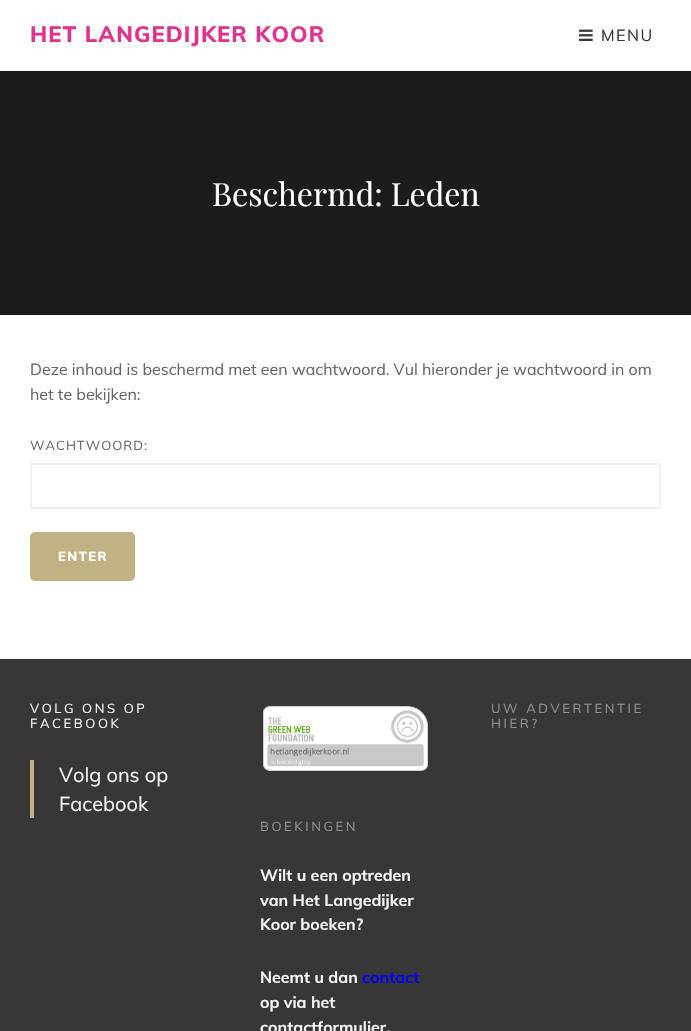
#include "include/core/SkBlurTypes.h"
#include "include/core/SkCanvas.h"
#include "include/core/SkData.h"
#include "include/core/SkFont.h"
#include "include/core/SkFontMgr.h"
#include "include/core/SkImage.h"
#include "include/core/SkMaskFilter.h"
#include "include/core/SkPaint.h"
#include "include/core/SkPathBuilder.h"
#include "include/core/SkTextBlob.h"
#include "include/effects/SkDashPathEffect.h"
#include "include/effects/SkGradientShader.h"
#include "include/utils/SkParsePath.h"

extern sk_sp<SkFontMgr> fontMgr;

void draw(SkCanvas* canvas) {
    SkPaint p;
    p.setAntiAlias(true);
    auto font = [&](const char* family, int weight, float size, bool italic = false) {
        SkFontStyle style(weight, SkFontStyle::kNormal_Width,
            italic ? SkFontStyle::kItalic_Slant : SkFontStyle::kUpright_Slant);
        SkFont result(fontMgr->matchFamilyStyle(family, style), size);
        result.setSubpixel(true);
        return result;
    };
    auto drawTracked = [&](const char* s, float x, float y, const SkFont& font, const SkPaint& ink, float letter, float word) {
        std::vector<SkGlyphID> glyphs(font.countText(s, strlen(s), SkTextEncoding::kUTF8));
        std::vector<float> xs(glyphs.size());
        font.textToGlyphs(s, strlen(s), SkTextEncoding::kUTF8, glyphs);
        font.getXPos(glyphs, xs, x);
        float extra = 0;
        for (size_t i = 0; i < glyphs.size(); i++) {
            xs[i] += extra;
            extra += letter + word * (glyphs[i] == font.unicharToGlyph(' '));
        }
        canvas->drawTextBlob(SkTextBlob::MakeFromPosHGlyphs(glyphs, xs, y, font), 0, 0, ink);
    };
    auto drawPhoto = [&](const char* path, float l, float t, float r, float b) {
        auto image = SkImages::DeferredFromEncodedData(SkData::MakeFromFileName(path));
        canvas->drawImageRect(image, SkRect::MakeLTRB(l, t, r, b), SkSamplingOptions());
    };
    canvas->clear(0xFFFFFFFF);
    p.setColor(0xFFF4F4F4);
    canvas->drawRect(SkRect::MakeLTRB(0, 70, 691, 71), p);
    auto font1 = font("Muli", 800, 22);
    p.setColor(0xFFE0338F);
    drawTracked("HET LANGEDIJKER KOOR", 30, 42, font1, p, 1.1f, 0);
    drawPhoto("media/1.png", 579, 29, 593, 41);
    auto font2 = font("Muli", 400, 16);
    p.setColor(0xFF373737);
    drawTracked("MENU", 601, 41, font2, p, 1.5f, 0);
    p.setColor(0xFF1C1C1C);
    canvas->drawRect(SkRect::MakeLTRB(0, 71, 691, 315), p);
    auto font3 = font("Playfair Display", 400, 32);
    p.setColor(0xFFFFFFFF);
    canvas->drawString("Beschermd: Leden", 212, 206, font3, p);
    p.setColor(0xFFF0F0F0);
    canvas->drawRect(SkRect::MakeLTRB(0, 658, 691, 659), p);
    p.setColor(0xFF676767);
    canvas->drawString("Deze inhoud is beschermd met een wachtwoord. Vul hieronder je wachtwoord in om", 30, 375, font2, p);
    canvas->drawString("het te bekijken:", 30, 400, font2, p);
    auto font4 = font("Muli", 400, 13);
    drawTracked("WACHTWOORD:", 30, 450, font4, p, 1, 0);
    p.setStyle(SkPaint::kStroke_Style);
    p.setStrokeWidth(2);
    p.setColor(0xFFF0F0F0);
    canvas->drawRect(SkRect::MakeLTRB(31, 464, 660, 508), p);
    p.setStyle(SkPaint::kFill_Style);
    p.setColor(0xFFC0B283);
    canvas->drawRoundRect(SkRect::MakeLTRB(30, 532, 135, 581), 5, 5, p);
    auto font5 = font("Muli", 800, 13);
    p.setColor(0xFFFFFFFF);
    drawTracked("ENTER", 58, 561, font5, p, 1.5f, 0);
    p.setColor(0xFF373737);
    canvas->drawRect(SkRect::MakeLTRB(0, 659, 691, 1031), p);
    p.setColor(0xFFF4F4F4);
    drawTracked("VOLG ONS OP", 30, 713, font4, p, 2.6f, 0);
    drawTracked("FACEBOOK", 30, 728, font4, p, 2.6f, 0);
    p.setColor(0xFFC0B283);
    canvas->drawRect(SkRect::MakeLTRB(30, 760, 34, 818), p);
    auto font6 = font("Muli", 400, 20);
    p.setColor(0xFFF4F4F4);
    canvas->drawString("Volg ons op", 59, 782, font6, p);
    canvas->drawString("Facebook", 59, 811, font6, p);
    p.setColor(0xFF919191);
    drawTracked("UW ADVERTENTIE", 491, 713, font4, p, 2.6f, 0);
    drawTracked("HIER?", 491, 728, font4, p, 2.6f, 0);
    drawPhoto("media/2.png", 263, 706, 428, 771);
    drawTracked("BOEKINGEN", 260, 831, font4, p, 2.6f, 0);
    auto font7 = font("Muli", 700, 16);
    p.setColor(0xFFF4F4F4);
    {
        const struct { const char* s; float x, y; } items[] = {
            {"Wilt u een optreden", 260, 881},
            {"van Het Langedijker", 260, 906},
            {"Koor boeken?", 260, 930},
            {"Neemt u dan", 260, 983},
        };
        for (auto [s, x, y] : items) {
            canvas->drawString(s, x, y, font7, p);
        }
    }
    p.setColor(0xFF0000FF);
    canvas->drawString("contact", 362, 983, font7, p);
    p.setColor(0xFFF4F4F4);
    canvas->drawString("op via het", 260, 1008, font7, p);
    canvas->drawString("contactformulier.", 260, 1033, font7, p);
}
